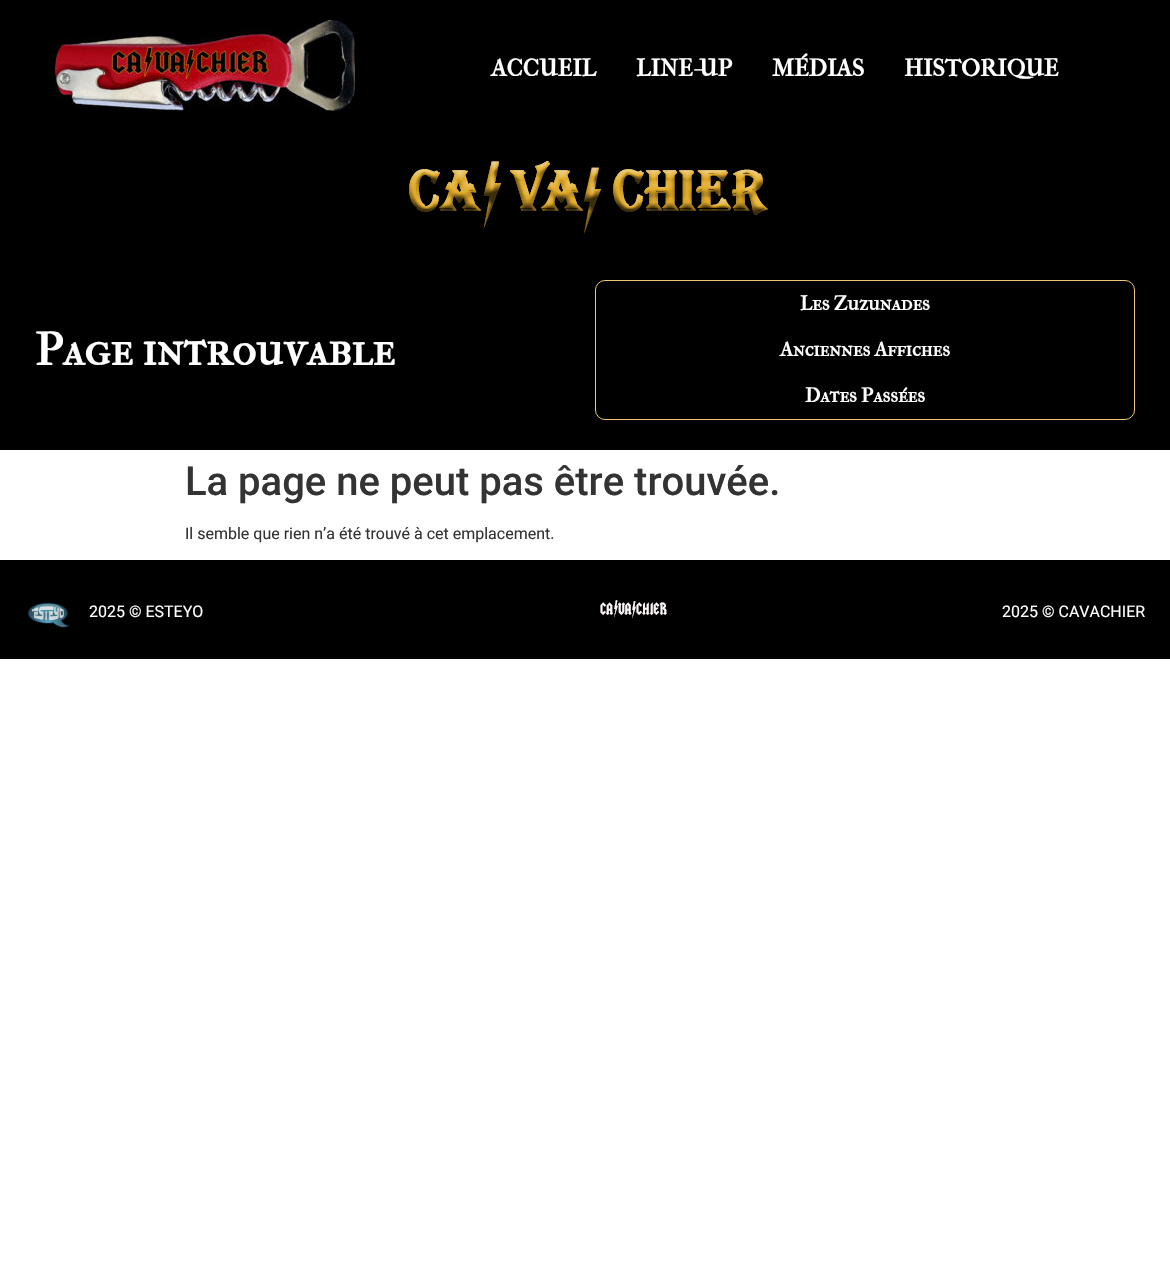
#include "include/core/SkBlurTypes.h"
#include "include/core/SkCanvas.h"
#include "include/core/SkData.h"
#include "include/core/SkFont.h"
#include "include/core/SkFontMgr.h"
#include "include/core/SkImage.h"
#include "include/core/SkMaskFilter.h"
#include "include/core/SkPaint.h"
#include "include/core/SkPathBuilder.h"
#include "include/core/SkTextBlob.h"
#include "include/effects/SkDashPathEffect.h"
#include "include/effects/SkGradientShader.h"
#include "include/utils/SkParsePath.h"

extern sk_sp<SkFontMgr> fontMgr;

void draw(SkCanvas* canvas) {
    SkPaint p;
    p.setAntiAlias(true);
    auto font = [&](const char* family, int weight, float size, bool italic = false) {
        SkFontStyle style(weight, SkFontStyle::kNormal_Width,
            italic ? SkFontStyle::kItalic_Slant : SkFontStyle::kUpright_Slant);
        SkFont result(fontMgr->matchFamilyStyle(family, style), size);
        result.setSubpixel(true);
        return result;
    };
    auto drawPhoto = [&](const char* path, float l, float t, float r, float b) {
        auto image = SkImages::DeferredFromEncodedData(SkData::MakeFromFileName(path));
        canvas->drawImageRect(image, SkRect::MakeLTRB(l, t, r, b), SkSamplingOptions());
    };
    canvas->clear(0xFFFFFFFF);
    p.setColor(0xFF000000);
    canvas->drawRect(SkRect::MakeLTRB(0, 0, 1170, 450), p);
    drawPhoto("media/1.png", 55, 20, 355, 111);
    auto font1 = font("IM FELL French Canon SC", 700, 24);
    p.setColor(0xFFFFFFFF);
    {
        const struct { const char* s; float x, y; } items[] = {
            {"ACCUEIL", 491, 76},
            {"LINE-UP", 636, 76},
            {"MÉDIAS", 772, 76},
            {"HISTORIQUE", 904, 76},
        };
        for (auto [s, x, y] : items) {
            canvas->drawString(s, x, y, font1, p);
        }
    }
    drawPhoto("media/2.png", 409, 161, 768, 235);
    auto font2 = font("IM FELL French Canon SC", 700, 46);
    canvas->drawString("Page introuvable", 35, 365, font2, p);
    p.setStyle(SkPaint::kStroke_Style);
    p.setStrokeWidth(1);
    p.setColor(0xFFEBC773);
    canvas->drawRoundRect(SkRect::MakeLTRB(595.5f, 280.5f, 1134.5f, 419.5f), 9.5f, 9.5f, p);
    auto font3 = font("IM FELL French Canon SC", 700, 20);
    p.setStyle(SkPaint::kFill_Style);
    p.setColor(0xFFFFFFFF);
    {
        const struct { const char* s; float x, y; } items[] = {
            {"Les Zuzunades", 800, 310},
            {"Anciennes Affiches", 780, 356},
            {"Dates Passées", 805, 402},
        };
        for (auto [s, x, y] : items) {
            canvas->drawString(s, x, y, font3, p);
        }
    }
    auto font4 = font("Roboto", 500, 40);
    p.setColor(0xFF333333);
    canvas->drawString("La page ne peut pas être trouvée.", 185, 495, font4, p);
    auto font5 = font("Roboto", 400, 16);
    canvas->drawString("Il semble que rien n’a été trouvé à cet emplacement.", 185, 539, font5, p);
    p.setColor(0xFF000000);
    canvas->drawRect(SkRect::MakeLTRB(0, 560, 1170, 659), p);
    drawPhoto("media/3.png", 27, 602, 70, 628);
    p.setColor(0xFFFFFFFF);
    canvas->drawString("2025 © ESTEYO", 89, 617, font5, p);
    drawPhoto("media/4.png", 600, 600, 667, 618);
    canvas->drawString("2025 © CAVACHIER", 1002, 617, font5, p);
}
